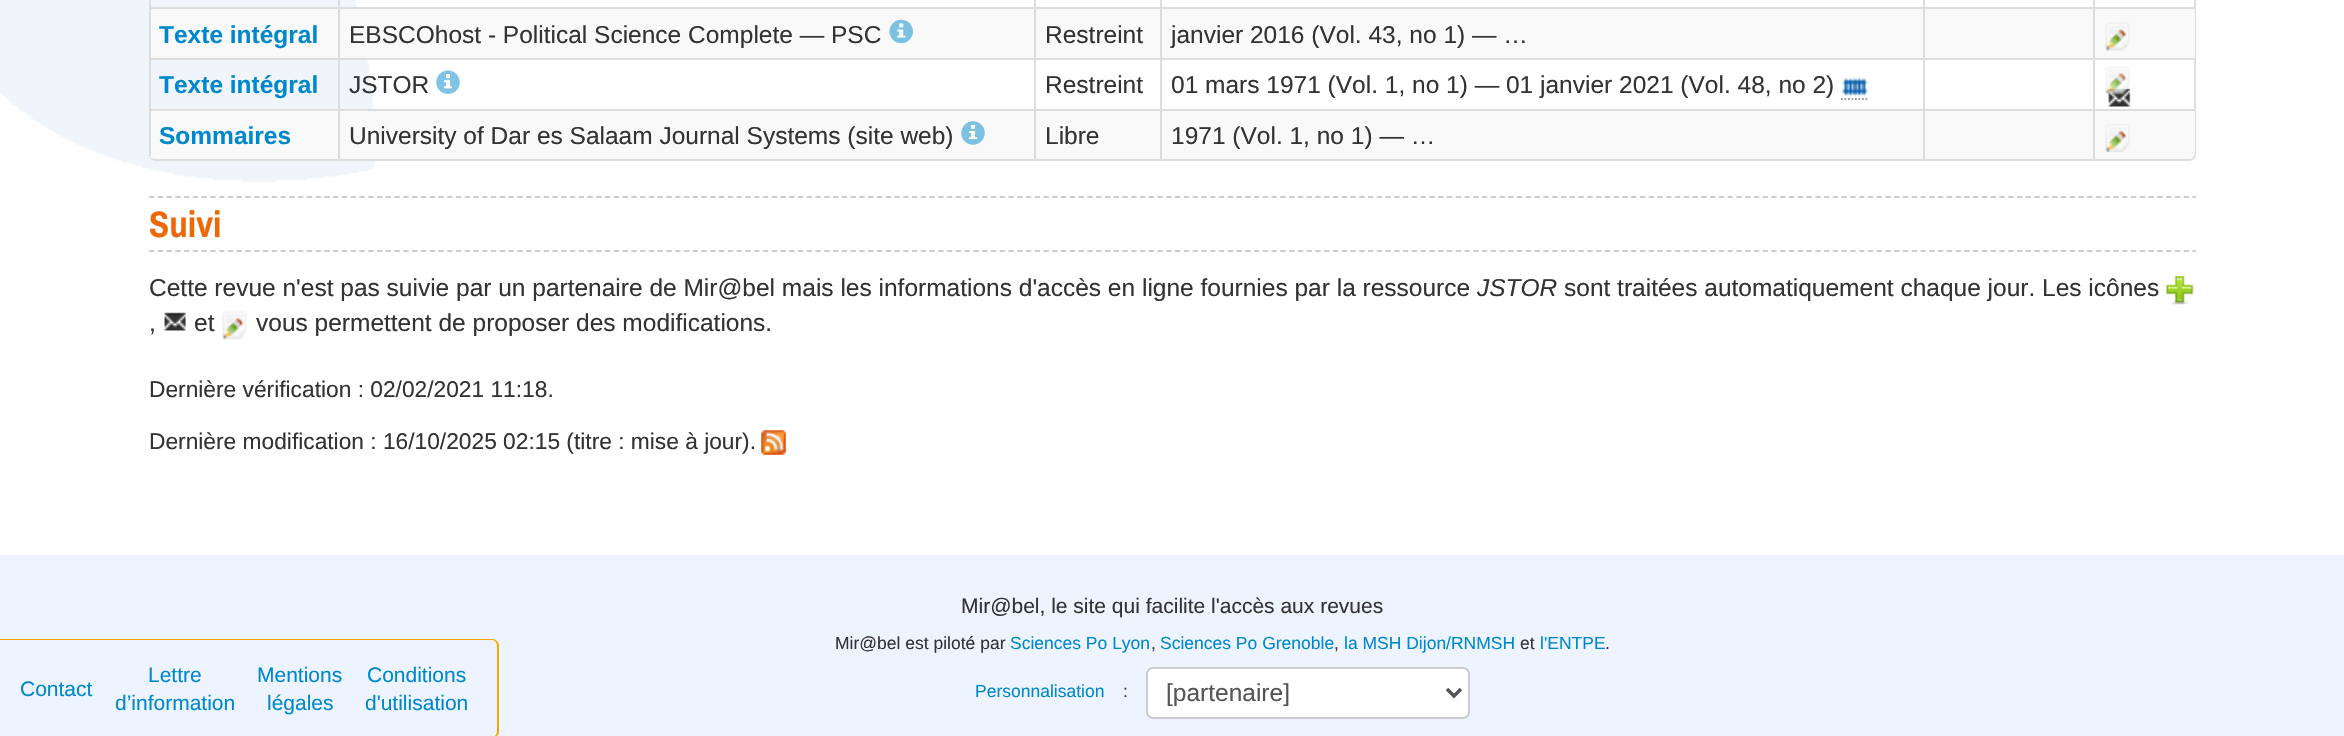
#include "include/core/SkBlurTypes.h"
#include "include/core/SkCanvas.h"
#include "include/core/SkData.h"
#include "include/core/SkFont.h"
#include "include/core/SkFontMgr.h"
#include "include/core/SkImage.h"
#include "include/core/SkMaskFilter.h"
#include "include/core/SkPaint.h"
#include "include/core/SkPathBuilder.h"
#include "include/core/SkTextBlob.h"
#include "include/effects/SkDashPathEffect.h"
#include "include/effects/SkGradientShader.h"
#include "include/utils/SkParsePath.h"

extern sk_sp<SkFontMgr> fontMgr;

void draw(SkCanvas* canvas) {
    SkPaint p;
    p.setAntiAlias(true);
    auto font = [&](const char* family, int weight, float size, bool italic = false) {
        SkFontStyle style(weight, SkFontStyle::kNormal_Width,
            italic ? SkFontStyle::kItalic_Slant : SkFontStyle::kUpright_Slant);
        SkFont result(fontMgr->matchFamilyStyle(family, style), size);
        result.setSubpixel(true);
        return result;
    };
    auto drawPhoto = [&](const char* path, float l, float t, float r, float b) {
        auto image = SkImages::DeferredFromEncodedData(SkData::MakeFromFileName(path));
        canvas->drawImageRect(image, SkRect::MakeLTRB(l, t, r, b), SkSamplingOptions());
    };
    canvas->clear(0xFFFFFFFF);
    drawPhoto("media/1.png", 0, 0, 375, 182);
    p.setColor(0xFFDDDDDD);
    canvas->drawPath(SkPathBuilder(SkPathFillType::kEvenOdd).moveTo(156, -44).lineTo(2189, -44).cubicTo(2193, -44, 2196, -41, 2196, -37).lineTo(2196, 154).cubicTo(2196, 158, 2193, 161, 2189, 161).lineTo(156, 161).cubicTo(152, 161, 149, 158, 149, 154).lineTo(149, -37).cubicTo(149, -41, 152, -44, 156, -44).close().moveTo(156, -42).lineTo(2189, -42).cubicTo(2192, -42, 2194, -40, 2194, -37).lineTo(2194, 154).cubicTo(2194, 157, 2192, 159, 2189, 159).lineTo(156, 159).cubicTo(152, 159, 149, 157, 149, 154).lineTo(149, -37).cubicTo(149, -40, 152, -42, 156, -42).close().detach(), p);
    {
        const struct { float l, t, r, b; SkColor color; } items[] = {
            {149, 0, 151, 7, 0xFFDDDDDD},
            {338, 0, 340, 7, 0xFFDDDDDD},
            {1034, 0, 1036, 7, 0xFFDDDDDD},
            {1160, 0, 1162, 7, 0xFFDDDDDD},
            {1923, 0, 1925, 7, 0xFFDDDDDD},
            {2093, 0, 2095, 7, 0xFFDDDDDD},
            {151, 9, 338, 58, 0xFFF9F9F9},
            {149, 7, 2195, 9, 0xFFDDDDDD},
            {149, 7, 151, 58, 0xFFDDDDDD},
        };
        for (auto [l, t, r, b, color] : items) {
            p.setColor(color);
            canvas->drawRect(SkRect::MakeLTRB(l, t, r, b), p);
        }
    }
    auto font1 = font("Liberation Sans", 700, 24.5f);
    p.setColor(0xFF0088CC);
    canvas->drawString("Texte intégral", 159, 43, font1, p);
    p.setColor(0xFFF9F9F9);
    canvas->drawRect(SkRect::MakeLTRB(340, 9, 1034, 58), p);
    p.setColor(0xFFDDDDDD);
    canvas->drawRect(SkRect::MakeLTRB(338, 7, 340, 58), p);
    auto font2 = font("Liberation Sans", 400, 24.5f);
    p.setColor(0xFF333333);
    canvas->drawString("EBSCOhost - Political Science Complete — PSC", 349, 43, font2, p);
    drawPhoto("media/2.png", 889, 19, 913, 44);
    p.setColor(0xFFF9F9F9);
    canvas->drawRect(SkRect::MakeLTRB(1036, 9, 1160, 58), p);
    p.setColor(0xFFDDDDDD);
    canvas->drawRect(SkRect::MakeLTRB(1034, 7, 1036, 58), p);
    p.setColor(0xFF333333);
    canvas->drawString("Restreint", 1045, 43, font2, p);
    p.setColor(0xFFF9F9F9);
    canvas->drawRect(SkRect::MakeLTRB(1162, 9, 1923, 58), p);
    p.setColor(0xFFDDDDDD);
    canvas->drawRect(SkRect::MakeLTRB(1160, 7, 1162, 58), p);
    p.setColor(0xFF333333);
    canvas->drawString("janvier 2016 (Vol. 43, no 1) — …", 1171, 43, font2, p);
    {
        const struct { float l, t, r, b; SkColor color; } items[] = {
            {1925, 9, 2093, 58, 0xFFF9F9F9},
            {1923, 7, 1925, 58, 0xFFDDDDDD},
            {2095, 9, 2195, 58, 0xFFF9F9F9},
            {2093, 7, 2095, 58, 0xFFDDDDDD},
        };
        for (auto [l, t, r, b, color] : items) {
            p.setColor(color);
            canvas->drawRect(SkRect::MakeLTRB(l, t, r, b), p);
        }
    }
    drawPhoto("media/3.png", 2105, 22, 2130, 51);
    canvas->drawRect(SkRect::MakeLTRB(149, 58, 2195, 60), p);
    canvas->drawRect(SkRect::MakeLTRB(149, 58, 151, 109), p);
    p.setColor(0xFF0088CC);
    canvas->drawString("Texte intégral", 159, 93, font1, p);
    p.setColor(0xFFDDDDDD);
    canvas->drawRect(SkRect::MakeLTRB(338, 58, 340, 109), p);
    p.setColor(0xFF333333);
    canvas->drawString("JSTOR", 349, 93, font2, p);
    drawPhoto("media/4.png", 436, 70, 460, 94);
    p.setColor(0xFFDDDDDD);
    canvas->drawRect(SkRect::MakeLTRB(1034, 58, 1036, 109), p);
    p.setColor(0xFF333333);
    canvas->drawString("Restreint", 1045, 93, font2, p);
    p.setColor(0xFFDDDDDD);
    canvas->drawRect(SkRect::MakeLTRB(1160, 58, 1162, 109), p);
    p.setColor(0xFF333333);
    canvas->drawString("01 mars 1971 (Vol. 1, no 1) — 01 janvier 2021 (Vol. 48, no 2)", 1171, 93, font2, p);
    drawPhoto("media/5.png", 1841, 78, 1868, 97);
    p.setStyle(SkPaint::kStroke_Style);
    p.setStrokeWidth(1.8f);
    p.setColor(0xFF999999);
    p.setPathEffect(SkDashPathEffect::Make({{1.75f, 1.75f}}, 0));
    canvas->drawPath(SkPathBuilder().moveTo(1841, 99).lineTo(1869, 99).detach(), p);
    p.setPathEffect(nullptr);
    p.setStyle(SkPaint::kFill_Style);
    p.setColor(0xFFDDDDDD);
    canvas->drawRect(SkRect::MakeLTRB(1923, 58, 1925, 109), p);
    canvas->drawRect(SkRect::MakeLTRB(2093, 58, 2095, 109), p);
    drawPhoto("media/7.png", 2108, 88, 2131, 107);
    drawPhoto("media/6.png", 2105, 66, 2130, 95);
    p.setColor(0xFFF9F9F9);
    canvas->drawPath(SkPathBuilder().moveTo(149, 109).lineTo(338, 109).lineTo(338, 159).lineTo(156, 159).cubicTo(152, 159, 149, 156, 149, 152).close().detach(), p);
    p.setColor(0xFFDDDDDD);
    canvas->drawRect(SkRect::MakeLTRB(149, 109, 2093, 111), p);
    canvas->drawRect(SkRect::MakeLTRB(149, 109, 151, 156), p);
    p.setColor(0xFF0088CC);
    canvas->drawString("Sommaires", 159, 144, font1, p);
    p.setColor(0xFFF9F9F9);
    canvas->drawRect(SkRect::MakeLTRB(340, 111, 1034, 159), p);
    p.setColor(0xFFDDDDDD);
    canvas->drawRect(SkRect::MakeLTRB(338, 109, 340, 159), p);
    p.setColor(0xFF333333);
    canvas->drawString("University of Dar es Salaam Journal Systems (site web)", 349, 144, font2, p);
    drawPhoto("media/8.png", 961, 121, 985, 145);
    p.setColor(0xFFF9F9F9);
    canvas->drawRect(SkRect::MakeLTRB(1036, 111, 1160, 159), p);
    p.setColor(0xFFDDDDDD);
    canvas->drawRect(SkRect::MakeLTRB(1034, 109, 1036, 159), p);
    p.setColor(0xFF333333);
    canvas->drawString("Libre", 1045, 144, font2, p);
    p.setColor(0xFFF9F9F9);
    canvas->drawRect(SkRect::MakeLTRB(1162, 111, 1923, 159), p);
    p.setColor(0xFFDDDDDD);
    canvas->drawRect(SkRect::MakeLTRB(1160, 109, 1162, 159), p);
    p.setColor(0xFF333333);
    canvas->drawString("1971 (Vol. 1, no 1) — …", 1171, 144, font2, p);
    p.setColor(0xFFF9F9F9);
    canvas->drawRect(SkRect::MakeLTRB(1925, 111, 2093, 159), p);
    p.setColor(0xFFDDDDDD);
    canvas->drawRect(SkRect::MakeLTRB(1923, 109, 1925, 159), p);
    p.setColor(0xFFF9F9F9);
    canvas->drawPath(SkPathBuilder().moveTo(2093, 109).lineTo(2195, 109).lineTo(2195, 152).cubicTo(2195, 156, 2192, 159, 2188, 159).lineTo(2093, 159).close().detach(), p);
    p.setColor(0xFFDDDDDD);
    canvas->drawRect(SkRect::MakeLTRB(2093, 109, 2195, 111), p);
    canvas->drawRect(SkRect::MakeLTRB(2093, 109, 2095, 159), p);
    drawPhoto("media/9.png", 2105, 124, 2130, 152);
    p.setStyle(SkPaint::kStroke_Style);
    p.setColor(0xFFCCCCCC);
    p.setPathEffect(SkDashPathEffect::Make({{5.25f, 3.52f}}, 0));
    canvas->drawPath(SkPathBuilder().moveTo(149, 197).lineTo(2196, 197).detach(), p);
    p.setPathEffect(nullptr);
    p.setPathEffect(SkDashPathEffect::Make({{5.25f, 3.52f}}, 0));
    canvas->drawPath(SkPathBuilder().moveTo(149, 251).lineTo(2196, 251).detach(), p);
    p.setPathEffect(nullptr);
    auto font3 = font("Archivo Narrow", 700, 37);
    p.setStyle(SkPaint::kFill_Style);
    p.setColor(0xFFEB6909);
    canvas->drawString("Suivi", 149, 237, font3, p);
    p.setColor(0xFF333333);
    canvas->drawString("Cette revue n'est pas suivie par un partenaire de Mir@bel mais les informations d'accès en ligne fournies par la ressource", 149, 296, font2, p);
    auto font4 = font("Liberation Sans", 400, 24.5f, true);
    canvas->drawString("JSTOR", 1477, 296, font4, p);
    canvas->drawString("sont traitées automatiquement chaque jour. Les icônes", 1564, 296, font2, p);
    drawPhoto("media/10.png", 2166, 276, 2194, 305);
    canvas->drawString(",", 149, 331, font2, p);
    drawPhoto("media/11.png", 164, 312, 186, 331);
    canvas->drawString("et", 194, 331, font2, p);
    drawPhoto("media/12.png", 222, 311, 247, 340);
    canvas->drawString("vous permettent de proposer des modifications.", 256, 331, font2, p);
    auto font5 = font("Liberation Sans", 400, 22.75f);
    canvas->drawString("Dernière vérification : 02/02/2021 11:18.", 149, 397, font5, p);
    canvas->drawString("Dernière modification : 16/10/2025 02:15 (titre : mise à jour).", 149, 449, font5, p);
    drawPhoto("media/13.png", 761, 430, 786, 455);
    p.setColor(0xFFEDF4FF);
    canvas->drawRect(SkRect::MakeLTRB(0, 555, 2344, 736), p);
    auto font6 = font("Liberation Sans", 400, 21);
    p.setColor(0xFF333333);
    canvas->drawString("Mir@bel, le site qui facilite l'accès aux revues", 961, 613, font6, p);
    p.setColor(0xFFFFA500);
    canvas->drawPath(SkPathBuilder(SkPathFillType::kEvenOdd).moveTo(0, 639).lineTo(492, 639).cubicTo(496, 639, 499, 642, 499, 646).lineTo(499, 732).cubicTo(499, 735, 496, 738, 492, 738).lineTo(0, 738).close().moveTo(0, 640).lineTo(492, 640).cubicTo(495, 640, 497, 643, 497, 646).lineTo(497, 732).cubicTo(497, 734, 495, 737, 492, 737).lineTo(0, 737).close().detach(), p);
    p.setColor(0xFF0088CC);
    {
        const struct { const char* s; float x, y; } items[] = {
            {"Contact", 20, 696},
            {"Lettre", 148, 682},
            {"d’information", 115, 710},
            {"Mentions", 257, 682},
            {"légales", 267, 710},
            {"Conditions", 367, 682},
            {"d'utilisation", 365, 710},
        };
        for (auto [s, x, y] : items) {
            canvas->drawString(s, x, y, font6, p);
        }
    }
    auto font7 = font("Liberation Sans", 400, 17.5f);
    p.setColor(0xFF333333);
    canvas->drawString("Mir@bel est piloté par", 835, 649, font7, p);
    p.setColor(0xFF0088CC);
    canvas->drawString("Sciences Po Lyon", 1010, 649, font7, p);
    p.setColor(0xFF333333);
    canvas->drawString(",", 1151, 649, font7, p);
    p.setColor(0xFF0088CC);
    canvas->drawString("Sciences Po Grenoble", 1160, 649, font7, p);
    p.setColor(0xFF333333);
    canvas->drawString(",", 1334, 649, font7, p);
    p.setColor(0xFF0088CC);
    canvas->drawString("la MSH Dijon/RNMSH", 1344, 649, font7, p);
    p.setColor(0xFF333333);
    canvas->drawString("et", 1520, 649, font7, p);
    p.setColor(0xFF0088CC);
    canvas->drawString("l'ENTPE", 1540, 649, font7, p);
    p.setColor(0xFF333333);
    canvas->drawString(".", 1605, 649, font7, p);
    p.setColor(0xFF0088CC);
    canvas->drawString("Personnalisation", 975, 697, font7, p);
    p.setColor(0xFF333333);
    canvas->drawString(":", 1123, 697, font7, p);
    p.setColor(0xFFFFFFFF);
    canvas->drawRoundRect(SkRect::MakeLTRB(1147, 668, 1469, 718), 6, 6, p);
    p.setStyle(SkPaint::kStroke_Style);
    p.setStrokeWidth(2);
    p.setColor(0xFFCCCCCC);
    canvas->drawRoundRect(SkRect::MakeLTRB(1147, 668, 1469, 718), 6, 6, p);
    p.setStrokeWidth(3.5f);
    p.setColor(0xFF555555);
    canvas->drawPath(SkPathBuilder().moveTo(1447, 689).lineTo(1454, 696).lineTo(1461, 689).detach(), p);
    p.setStyle(SkPaint::kFill_Style);
    canvas->drawString("[partenaire]", 1166, 701, font2, p);
}
